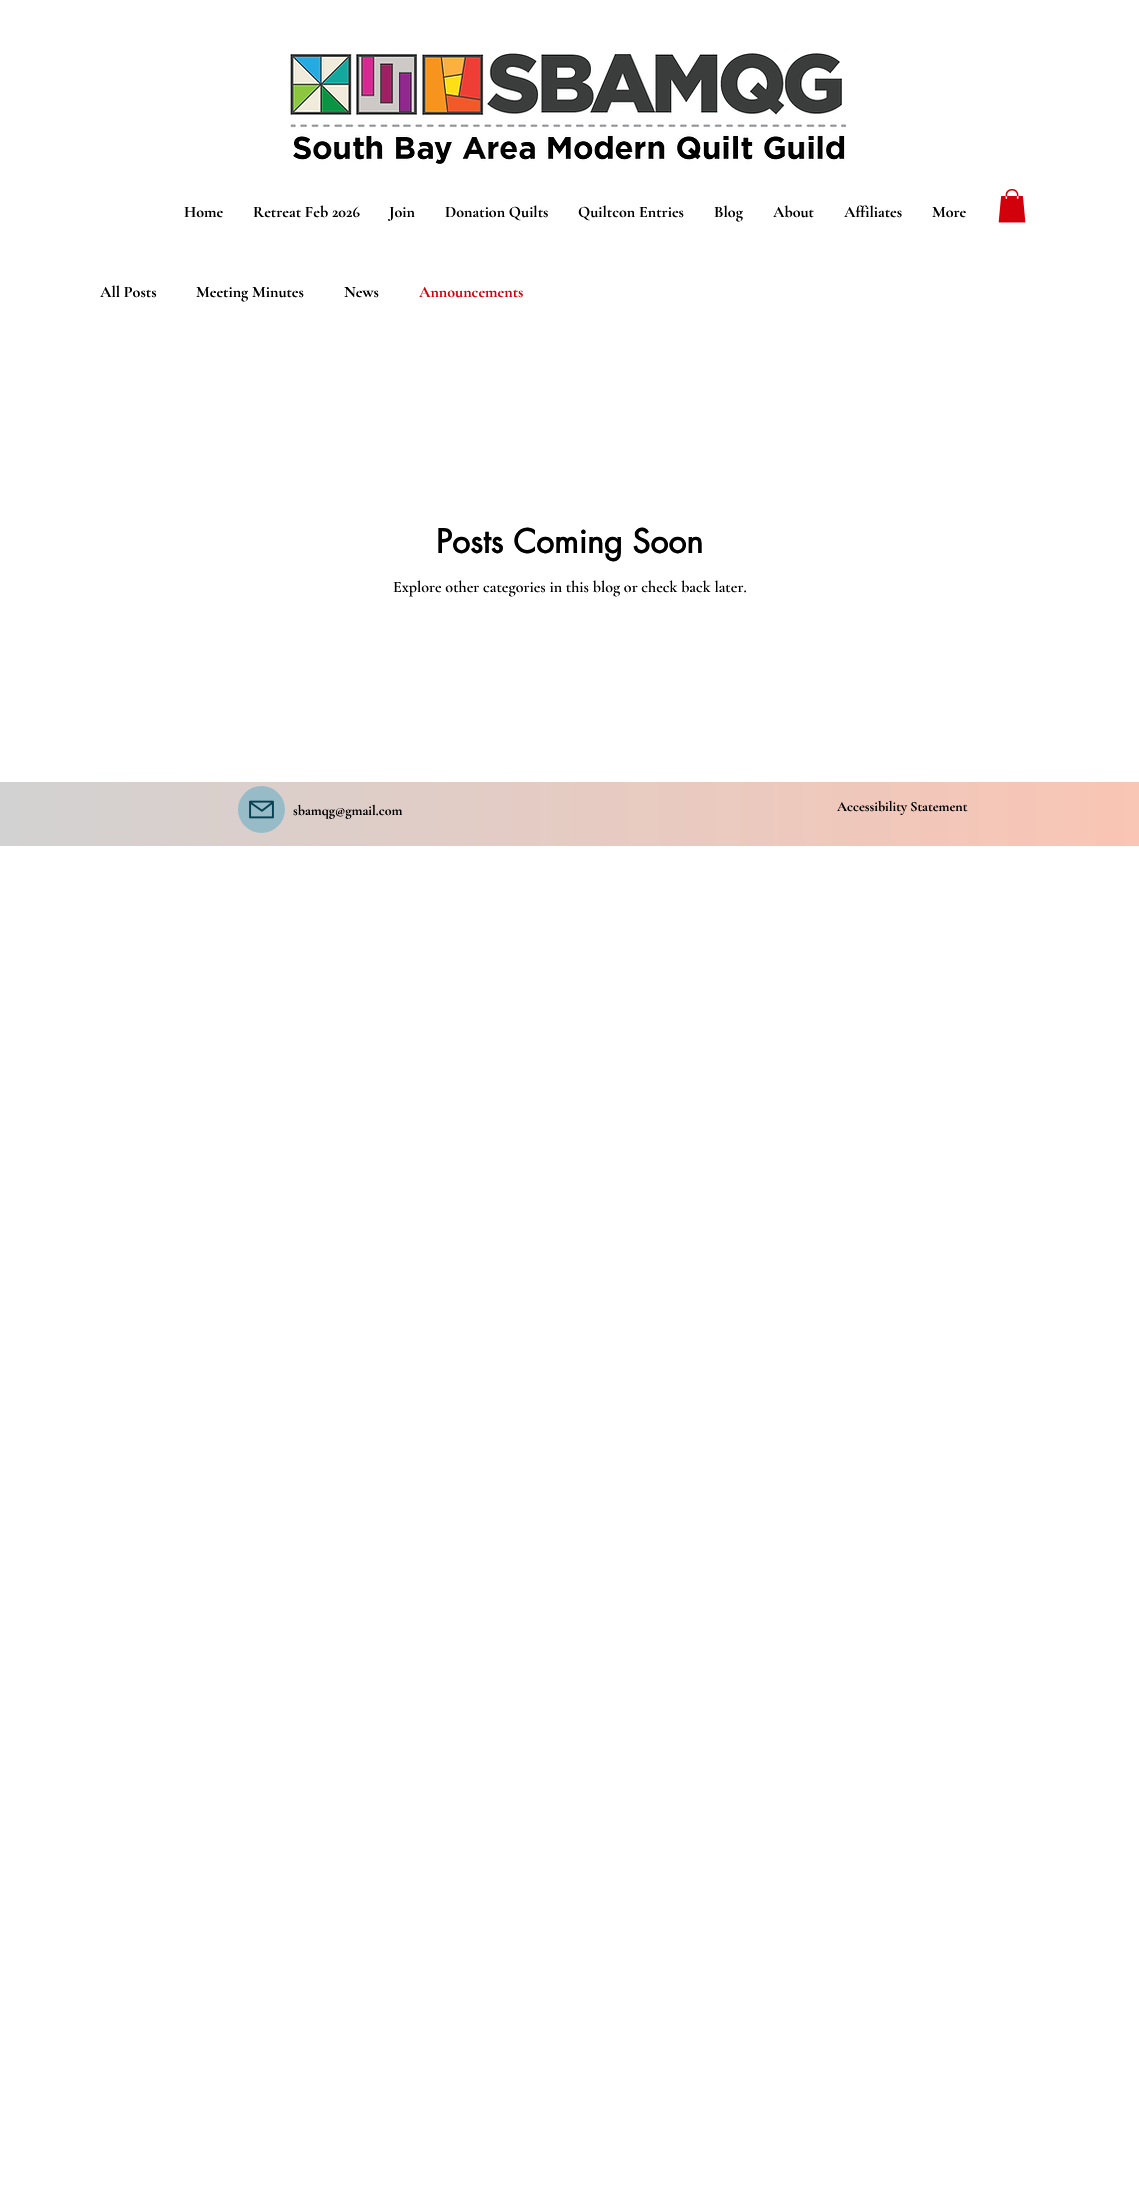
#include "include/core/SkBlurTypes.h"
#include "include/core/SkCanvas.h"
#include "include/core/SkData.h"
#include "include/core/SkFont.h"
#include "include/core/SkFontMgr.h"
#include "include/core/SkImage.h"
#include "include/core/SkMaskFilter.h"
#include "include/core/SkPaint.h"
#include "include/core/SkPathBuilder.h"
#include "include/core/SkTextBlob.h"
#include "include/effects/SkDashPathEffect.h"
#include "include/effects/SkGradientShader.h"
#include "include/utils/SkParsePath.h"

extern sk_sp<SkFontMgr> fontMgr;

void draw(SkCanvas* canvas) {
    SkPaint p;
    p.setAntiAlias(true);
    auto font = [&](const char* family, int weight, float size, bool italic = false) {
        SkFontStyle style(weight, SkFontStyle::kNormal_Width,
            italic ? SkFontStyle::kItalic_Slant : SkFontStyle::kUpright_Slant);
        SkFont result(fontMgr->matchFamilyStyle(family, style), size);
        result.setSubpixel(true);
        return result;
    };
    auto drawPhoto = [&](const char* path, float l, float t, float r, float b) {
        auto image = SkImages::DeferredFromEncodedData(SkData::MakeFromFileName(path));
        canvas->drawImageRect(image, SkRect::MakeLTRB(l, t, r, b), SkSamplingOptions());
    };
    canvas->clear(0xFFFFFFFF);
    drawPhoto("media/1.png", 290, 53, 847, 164);
    auto font1 = font("Cormorant Garamond", 700, 16);
    p.setColor(0xFF000000);
    {
        const struct { const char* s; float x, y; } items[] = {
            {"Home", 184, 217},
            {"Retreat Feb 2026", 253, 217},
            {"Join", 389, 217},
            {"Donation Quilts", 445, 217},
            {"Quiltcon Entries", 578, 217},
            {"Blog", 714, 217},
            {"About", 773, 217},
            {"Affiliates", 844, 217},
            {"More", 932, 217},
        };
        for (auto [s, x, y] : items) {
            canvas->drawString(s, x, y, font1, p);
        }
    }
    drawPhoto("media/2.png", 998, 189, 1026, 223);
    {
        const struct { const char* s; float x, y; } items[] = {
            {"All Posts", 100, 297},
            {"Meeting Minutes", 196, 297},
            {"News", 344, 297},
        };
        for (auto [s, x, y] : items) {
            canvas->drawString(s, x, y, font1, p);
        }
    }
    p.setColor(0xFFD1000A);
    canvas->drawString("Announcements", 419, 297, font1, p);
    auto font2 = font("futura", 700, 32);
    p.setColor(0xFF000000);
    canvas->drawString("Posts Coming Soon", 436, 553, font2, p);
    auto font3 = font("Cormorant Garamond", 600, 16);
    canvas->drawString("Explore other categories in this blog or check back later.", 393, 592, font3, p);
    {
        const SkColor colors[] = {0xFFD2D2D2, 0xFFF9C5B4};
        const float stops[] = {0, 1};
        const SkPoint ends[] = {{0, 814}, {1139, 814}};
        p.setShader(SkGradientShader::MakeLinear(ends, colors, stops, 2, SkTileMode::kClamp));
        p.setAlpha(255);
    }
    canvas->drawRect(SkRect::MakeLTRB(0, 782, 1139, 846), p);
    p.setShader(nullptr);
    p.setColor(0xFF97BCC8);
    canvas->drawCircle(261.5f, 809.5f, 23.5f, p);
    drawPhoto("media/3.png", 249, 800, 274, 819);
    auto font4 = font("Cormorant Garamond", 700, 14);
    p.setColor(0xFF000000);
    canvas->drawString("sbamqg@gmail.com", 293, 815, font4, p);
    canvas->drawString("Accessibility Statement", 837, 811, font4, p);
}
